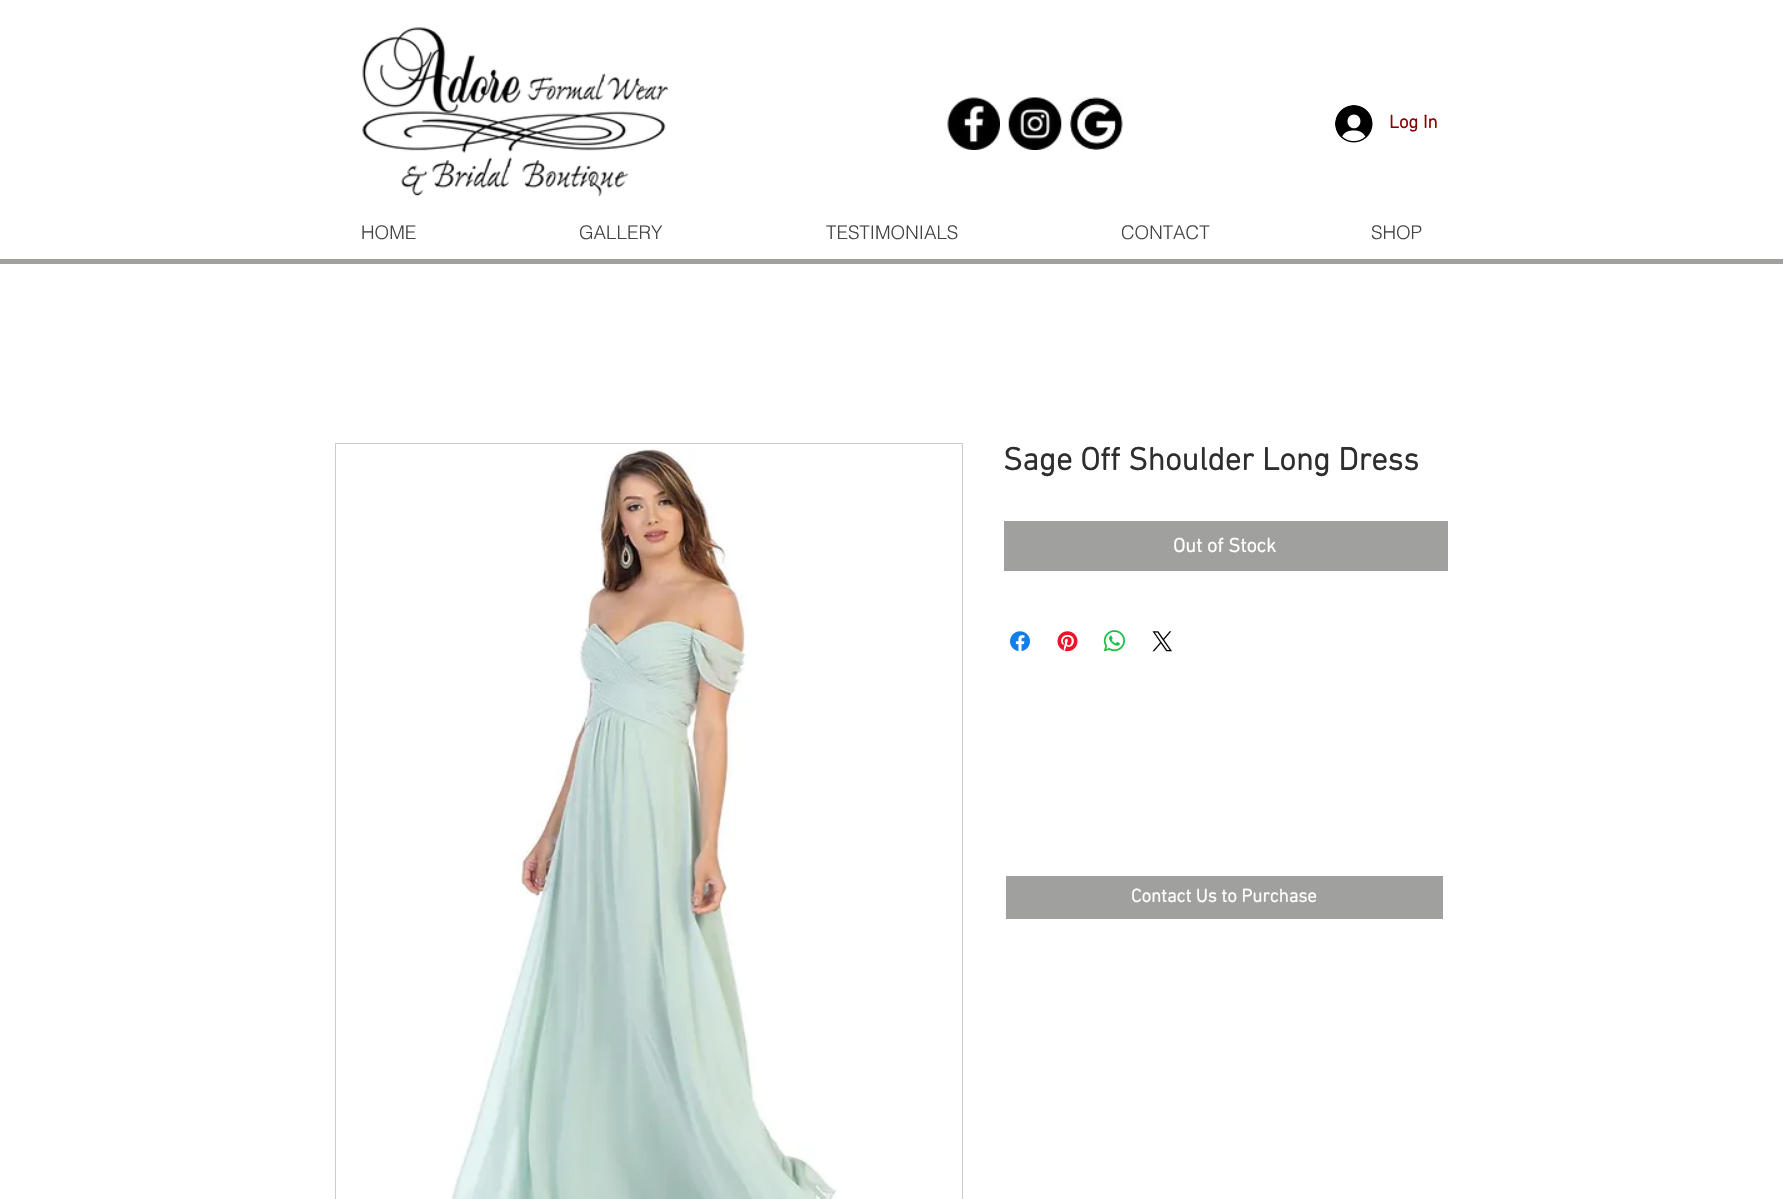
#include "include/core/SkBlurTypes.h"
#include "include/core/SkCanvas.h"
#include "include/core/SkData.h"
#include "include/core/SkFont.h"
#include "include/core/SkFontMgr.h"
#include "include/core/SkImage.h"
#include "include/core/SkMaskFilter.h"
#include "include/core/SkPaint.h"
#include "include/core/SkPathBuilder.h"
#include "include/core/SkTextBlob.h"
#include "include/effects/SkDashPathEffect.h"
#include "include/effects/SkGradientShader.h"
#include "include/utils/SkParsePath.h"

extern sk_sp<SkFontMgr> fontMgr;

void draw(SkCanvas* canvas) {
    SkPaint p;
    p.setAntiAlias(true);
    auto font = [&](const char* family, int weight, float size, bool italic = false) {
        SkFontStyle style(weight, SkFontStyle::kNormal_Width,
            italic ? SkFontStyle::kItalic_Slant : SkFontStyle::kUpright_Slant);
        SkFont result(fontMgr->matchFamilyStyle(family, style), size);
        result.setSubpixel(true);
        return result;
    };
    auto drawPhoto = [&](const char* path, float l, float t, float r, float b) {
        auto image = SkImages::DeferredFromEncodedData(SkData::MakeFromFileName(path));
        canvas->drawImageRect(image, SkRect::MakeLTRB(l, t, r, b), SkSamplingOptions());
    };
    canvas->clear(0xFFFFFFFF);
    drawPhoto("media/1.png", 362, 27, 669, 197);
    drawPhoto("media/2.png", 947, 97, 1000, 150);
    drawPhoto("media/3.png", 1008, 97, 1062, 150);
    drawPhoto("media/4.png", 1070, 97, 1123, 150);
    drawPhoto("media/5.png", 1335, 105, 1373, 143);
    auto font1 = font("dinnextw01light", 700, 18.75f);
    p.setColor(0xFF8B0000);
    canvas->drawString("Log In", 1389, 128, font1, p);
    auto font2 = font("helvetica", 300, 18.75f);
    p.setColor(0xFF444444);
    {
        const struct { const char* s; float x, y; } items[] = {
            {"HOME", 361, 239},
            {"GALLERY", 579, 239},
            {"TESTIMONIALS", 826, 239},
            {"CONTACT", 1121, 239},
            {"SHOP", 1371, 239},
        };
        for (auto [s, x, y] : items) {
            canvas->drawString(s, x, y, font2, p);
        }
    }
    p.setColor(0xFFA0A09F);
    canvas->drawRect(SkRect::MakeLTRB(0, 259, 1783, 264), p);
    p.setStyle(SkPaint::kStroke_Style);
    p.setStrokeWidth(1);
    p.setColor(0xFFCCCCCC);
    canvas->drawRect(SkRect::MakeLTRB(335.5f, 443.5f, 962.5f, 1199.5f), p);
    drawPhoto("media/6.png", 451, 448, 837, 1199);
    auto font3 = font("dinnextw01light", 700, 32.5f);
    p.setStyle(SkPaint::kFill_Style);
    p.setColor(0xFF2F2E2E);
    canvas->drawString("Sage Off Shoulder Long Dress", 1003, 470, font3, p);
    p.setColor(0xFFA0A09F);
    canvas->drawRect(SkRect::MakeLTRB(1004, 521, 1448, 571), p);
    auto font4 = font("dinnextw01light", 700, 20);
    p.setColor(0xFFFFFFFF);
    canvas->drawString("Out of Stock", 1173, 552, font4, p);
    drawPhoto("media/7.png", 1010, 631, 1030, 652);
    drawPhoto("media/8.png", 1057, 631, 1078, 652);
    drawPhoto("media/9.png", 1103, 630, 1125, 652);
    drawPhoto("media/10.png", 1152, 631, 1172, 652);
    p.setColor(0xFFA0A09F);
    canvas->drawRect(SkRect::MakeLTRB(1006, 876, 1443, 919), p);
    p.setColor(0xFFFFFFFF);
    canvas->drawString("Contact Us to Purchase", 1131, 902, font1, p);
}
